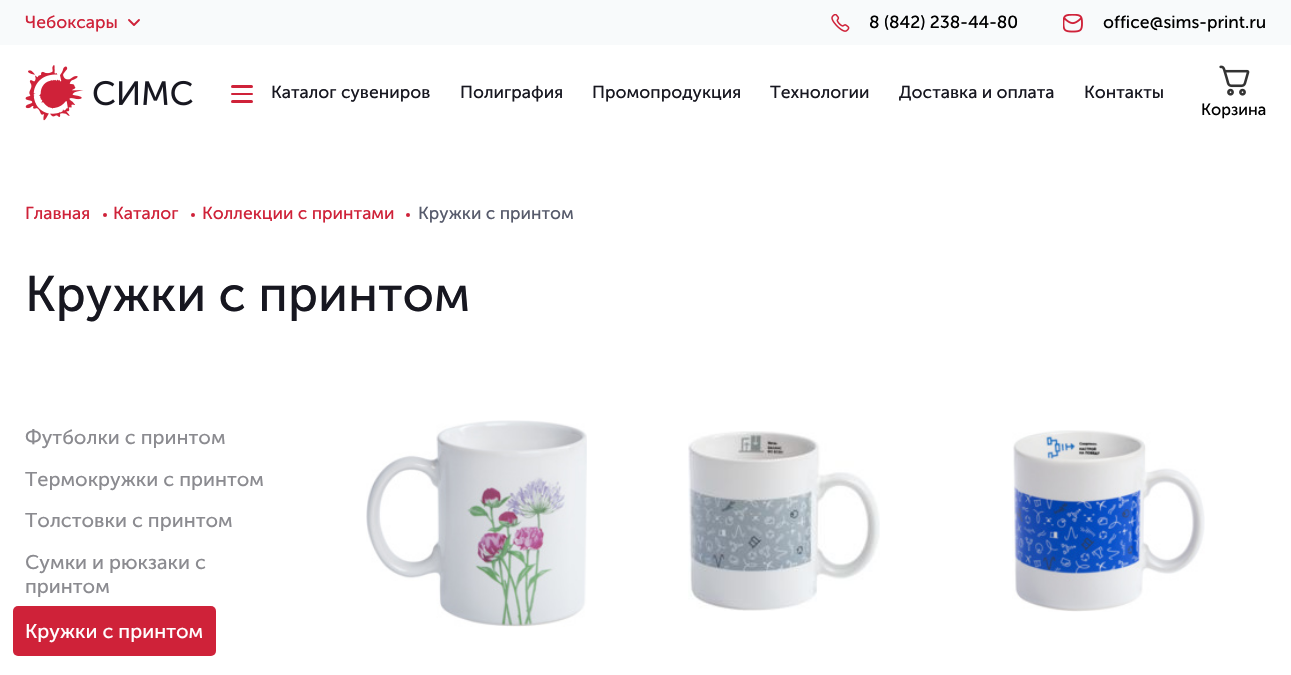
#include "include/core/SkBlurTypes.h"
#include "include/core/SkCanvas.h"
#include "include/core/SkData.h"
#include "include/core/SkFont.h"
#include "include/core/SkFontMgr.h"
#include "include/core/SkImage.h"
#include "include/core/SkMaskFilter.h"
#include "include/core/SkPaint.h"
#include "include/core/SkPathBuilder.h"
#include "include/core/SkTextBlob.h"
#include "include/effects/SkDashPathEffect.h"
#include "include/effects/SkGradientShader.h"
#include "include/utils/SkParsePath.h"

extern sk_sp<SkFontMgr> fontMgr;

void draw(SkCanvas* canvas) {
    SkPaint p;
    p.setAntiAlias(true);
    auto font = [&](const char* family, int weight, float size, bool italic = false) {
        SkFontStyle style(weight, SkFontStyle::kNormal_Width,
            italic ? SkFontStyle::kItalic_Slant : SkFontStyle::kUpright_Slant);
        SkFont result(fontMgr->matchFamilyStyle(family, style), size);
        result.setSubpixel(true);
        return result;
    };
    auto drawPhoto = [&](const char* path, float l, float t, float r, float b) {
        auto image = SkImages::DeferredFromEncodedData(SkData::MakeFromFileName(path));
        canvas->drawImageRect(image, SkRect::MakeLTRB(l, t, r, b), SkSamplingOptions());
    };
    canvas->clear(0xFFFFFFFF);
    p.setColor(0xFFF8FAFB);
    canvas->drawRect(SkRect::MakeLTRB(0, 0, 1291, 45), p);
    auto font1 = font("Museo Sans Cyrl", 400, 17.5f);
    p.setColor(0xFFCF2239);
    canvas->drawString("Чебоксары", 25, 28, font1, p);
    p.setStyle(SkPaint::kStroke_Style);
    p.setStrokeWidth(1.9f);
    p.setStrokeCap(SkPaint::kRound_Cap);
    p.setStrokeJoin(SkPaint::kRound_Join);
    canvas->drawPath(SkPathBuilder().moveTo(129, 20).lineTo(134, 25).lineTo(139, 20).detach(), p);
    drawPhoto("media/1.png", 831, 14, 850, 32);
    p.setStyle(SkPaint::kFill_Style);
    p.setColor(0xFF000000);
    canvas->drawString("8 (842) 238-44-80", 869, 28, font1, p);
    drawPhoto("media/2.png", 1063, 14, 1083, 33);
    canvas->drawString("office@sims-print.ru", 1103, 28, font1, p);
    drawPhoto("media/3.png", 25, 65, 193, 121);
    p.setColor(0xFFCF2239);
    canvas->drawRoundRect(SkRect::MakeLTRB(231, 85, 253, 88), 1.5f, 1.5f, p);
    canvas->drawRoundRect(SkRect::MakeLTRB(231, 93, 253, 95), 1, 1, p);
    canvas->drawRoundRect(SkRect::MakeLTRB(231, 100, 253, 103), 1.5f, 1.5f, p);
    p.setColor(0xFF171720);
    {
        const struct { const char* s; float x, y; } items[] = {
            {"Каталог сувениров", 271, 98},
            {"Полиграфия", 460, 98},
            {"Промопродукция", 592, 98},
            {"Технологии", 770, 98},
            {"Доставка и оплата", 899, 98},
            {"Контакты", 1084, 98},
        };
        for (auto [s, x, y] : items) {
            canvas->drawString(s, x, y, font1, p);
        }
    }
    drawPhoto("media/4.png", 1219, 65, 1250, 96);
    auto font2 = font("Museo Sans Cyrl", 400, 16.25f);
    p.setColor(0xFF000000);
    canvas->drawString("Корзина", 1201, 115, font2, p);
    p.setColor(0xFFCF2239);
    canvas->drawString("Главная", 25, 219, font1, p);
    canvas->drawCircle(105, 215, 2, p);
    canvas->drawString("Каталог", 113, 219, font1, p);
    canvas->drawCircle(193, 215, 2, p);
    canvas->drawString("Коллекции с принтами", 202, 219, font1, p);
    canvas->drawCircle(408, 215, 2, p);
    p.setColor(0xFF575B6C);
    canvas->drawString("Кружки с принтом", 418, 219, font1, p);
    auto font3 = font("Museo Sans Cyrl", 400, 50);
    p.setColor(0xFF171720);
    canvas->drawString("Кружки с принтом", 25, 311, font3, p);
    auto font4 = font("Museo Sans Cyrl", 400, 20);
    p.setColor(0xFF8B8B90);
    {
        const struct { const char* s; float x, y; } items[] = {
            {"Футболки с принтом", 25, 444},
            {"Термокружки с принтом", 25, 486},
            {"Толстовки с принтом", 25, 527},
            {"Сумки и рюкзаки с", 25, 569},
            {"принтом", 25, 593},
        };
        for (auto [s, x, y] : items) {
            canvas->drawString(s, x, y, font4, p);
        }
    }
    p.setColor(0xFFCF2239);
    canvas->drawRoundRect(SkRect::MakeLTRB(13, 606, 216, 656), 5, 5, p);
    p.setColor(0xFFFFFFFF);
    canvas->drawString("Кружки с принтом", 25, 638, font4, p);
    drawPhoto("media/5.png", 366, 420, 587, 627);
    drawPhoto("media/6.png", 688, 431, 880, 611);
    drawPhoto("media/7.png", 1012, 430, 1205, 612);
}
